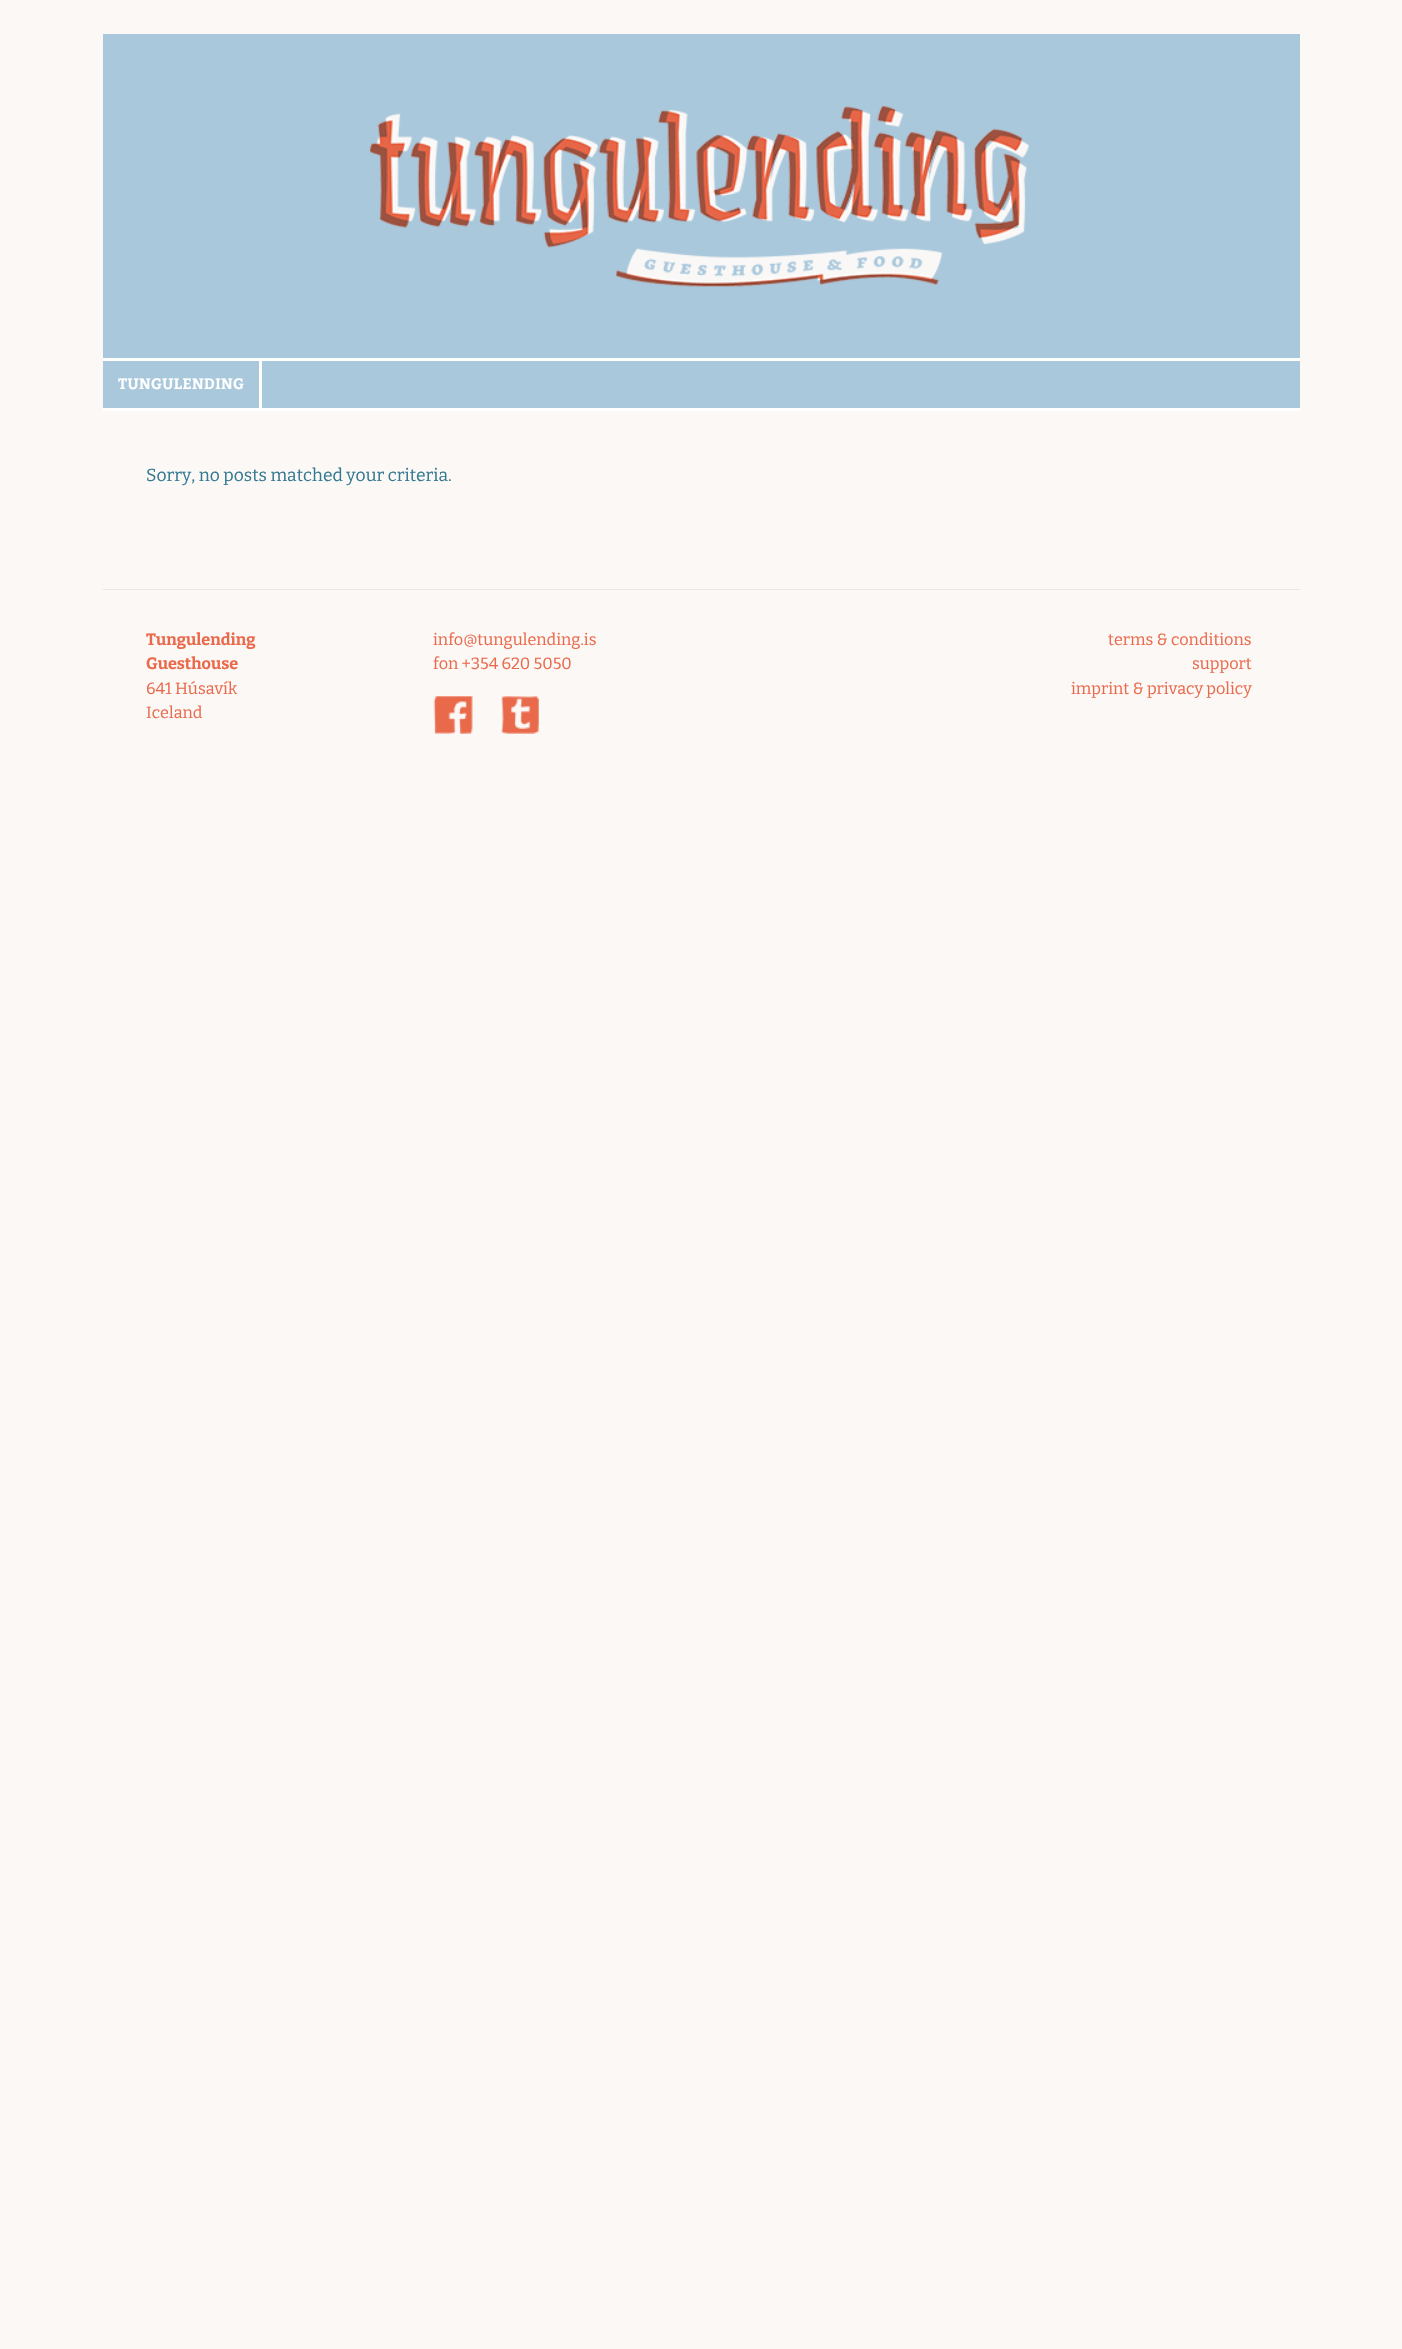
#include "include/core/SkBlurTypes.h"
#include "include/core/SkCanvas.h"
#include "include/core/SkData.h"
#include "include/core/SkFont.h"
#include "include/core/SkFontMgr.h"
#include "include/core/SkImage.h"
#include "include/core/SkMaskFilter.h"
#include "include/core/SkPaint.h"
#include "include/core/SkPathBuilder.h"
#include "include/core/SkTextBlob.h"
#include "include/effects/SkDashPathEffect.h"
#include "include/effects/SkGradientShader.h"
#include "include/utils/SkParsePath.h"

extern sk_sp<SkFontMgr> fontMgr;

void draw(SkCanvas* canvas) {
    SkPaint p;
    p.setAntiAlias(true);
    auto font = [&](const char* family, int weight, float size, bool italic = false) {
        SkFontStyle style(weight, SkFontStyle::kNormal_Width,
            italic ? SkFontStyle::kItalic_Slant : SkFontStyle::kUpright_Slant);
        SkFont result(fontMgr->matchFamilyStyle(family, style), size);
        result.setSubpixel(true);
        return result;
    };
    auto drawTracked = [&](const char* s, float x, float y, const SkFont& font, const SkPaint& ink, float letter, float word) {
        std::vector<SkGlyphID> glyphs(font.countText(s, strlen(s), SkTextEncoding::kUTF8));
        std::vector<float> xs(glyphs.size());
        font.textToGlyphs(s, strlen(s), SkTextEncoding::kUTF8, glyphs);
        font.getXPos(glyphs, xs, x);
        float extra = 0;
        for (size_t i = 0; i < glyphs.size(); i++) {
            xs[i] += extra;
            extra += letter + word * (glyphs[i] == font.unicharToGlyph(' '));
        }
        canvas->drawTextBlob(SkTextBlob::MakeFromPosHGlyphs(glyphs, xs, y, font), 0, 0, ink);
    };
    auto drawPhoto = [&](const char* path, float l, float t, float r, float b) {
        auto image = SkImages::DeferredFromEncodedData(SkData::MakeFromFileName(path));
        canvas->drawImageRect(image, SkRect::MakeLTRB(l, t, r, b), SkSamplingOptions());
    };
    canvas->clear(0xFFFBF8F6);
    p.setColor(0xFFAAC8DC);
    canvas->drawRect(SkRect::MakeLTRB(103, 34, 1300, 358), p);
    drawPhoto("media/1.png", 369, 106, 1029, 287);
    {
        const struct { float l, t, r, b; SkColor color; } items[] = {
            {103, 361, 1300, 408, 0xFFAAC8DC},
            {103, 358, 1300, 361, 0xFFFFFFFF},
            {103, 408, 1300, 411, 0xFFFFFFFF},
            {259, 360, 262, 408, 0xFFFFFFFF},
        };
        for (auto [l, t, r, b, color] : items) {
            p.setColor(color);
            canvas->drawRect(SkRect::MakeLTRB(l, t, r, b), p);
        }
    }
    auto font1 = font("Bitter", 700, 15);
    drawTracked("TUNGULENDING", 118, 389, font1, p, 0.4f, 0);
    auto font2 = font("Bitter", 400, 17.5f);
    p.setColor(0xFF347992);
    canvas->drawString("Sorry, no posts matched your criteria.", 146, 481, font2, p);
    p.setColor(0xFFE6E6E6);
    canvas->drawRect(SkRect::MakeLTRB(103, 589, 1300, 590), p);
    auto font3 = font("Bitter", 700, 16.25f);
    p.setColor(0xFFEB694B);
    canvas->drawString("Tungulending", 146, 645, font3, p);
    canvas->drawString("Guesthouse", 146, 669, font3, p);
    auto font4 = font("Bitter", 400, 16.25f);
    {
        const struct { const char* s; float x, y; } items[] = {
            {"641 Húsavík", 146, 694},
            {"Iceland", 146, 718},
            {"info@tungulending.is", 433, 645},
            {"fon +354 620 5050", 433, 669},
        };
        for (auto [s, x, y] : items) {
            canvas->drawString(s, x, y, font4, p);
        }
    }
    drawPhoto("media/2.png", 433, 696, 473, 734);
    drawPhoto("media/3.png", 501, 696, 539, 734);
    {
        const struct { const char* s; float x, y; } items[] = {
            {"terms & conditions", 1108, 645},
            {"support", 1192, 669},
            {"imprint & privacy policy", 1071, 694},
        };
        for (auto [s, x, y] : items) {
            canvas->drawString(s, x, y, font4, p);
        }
    }
}
